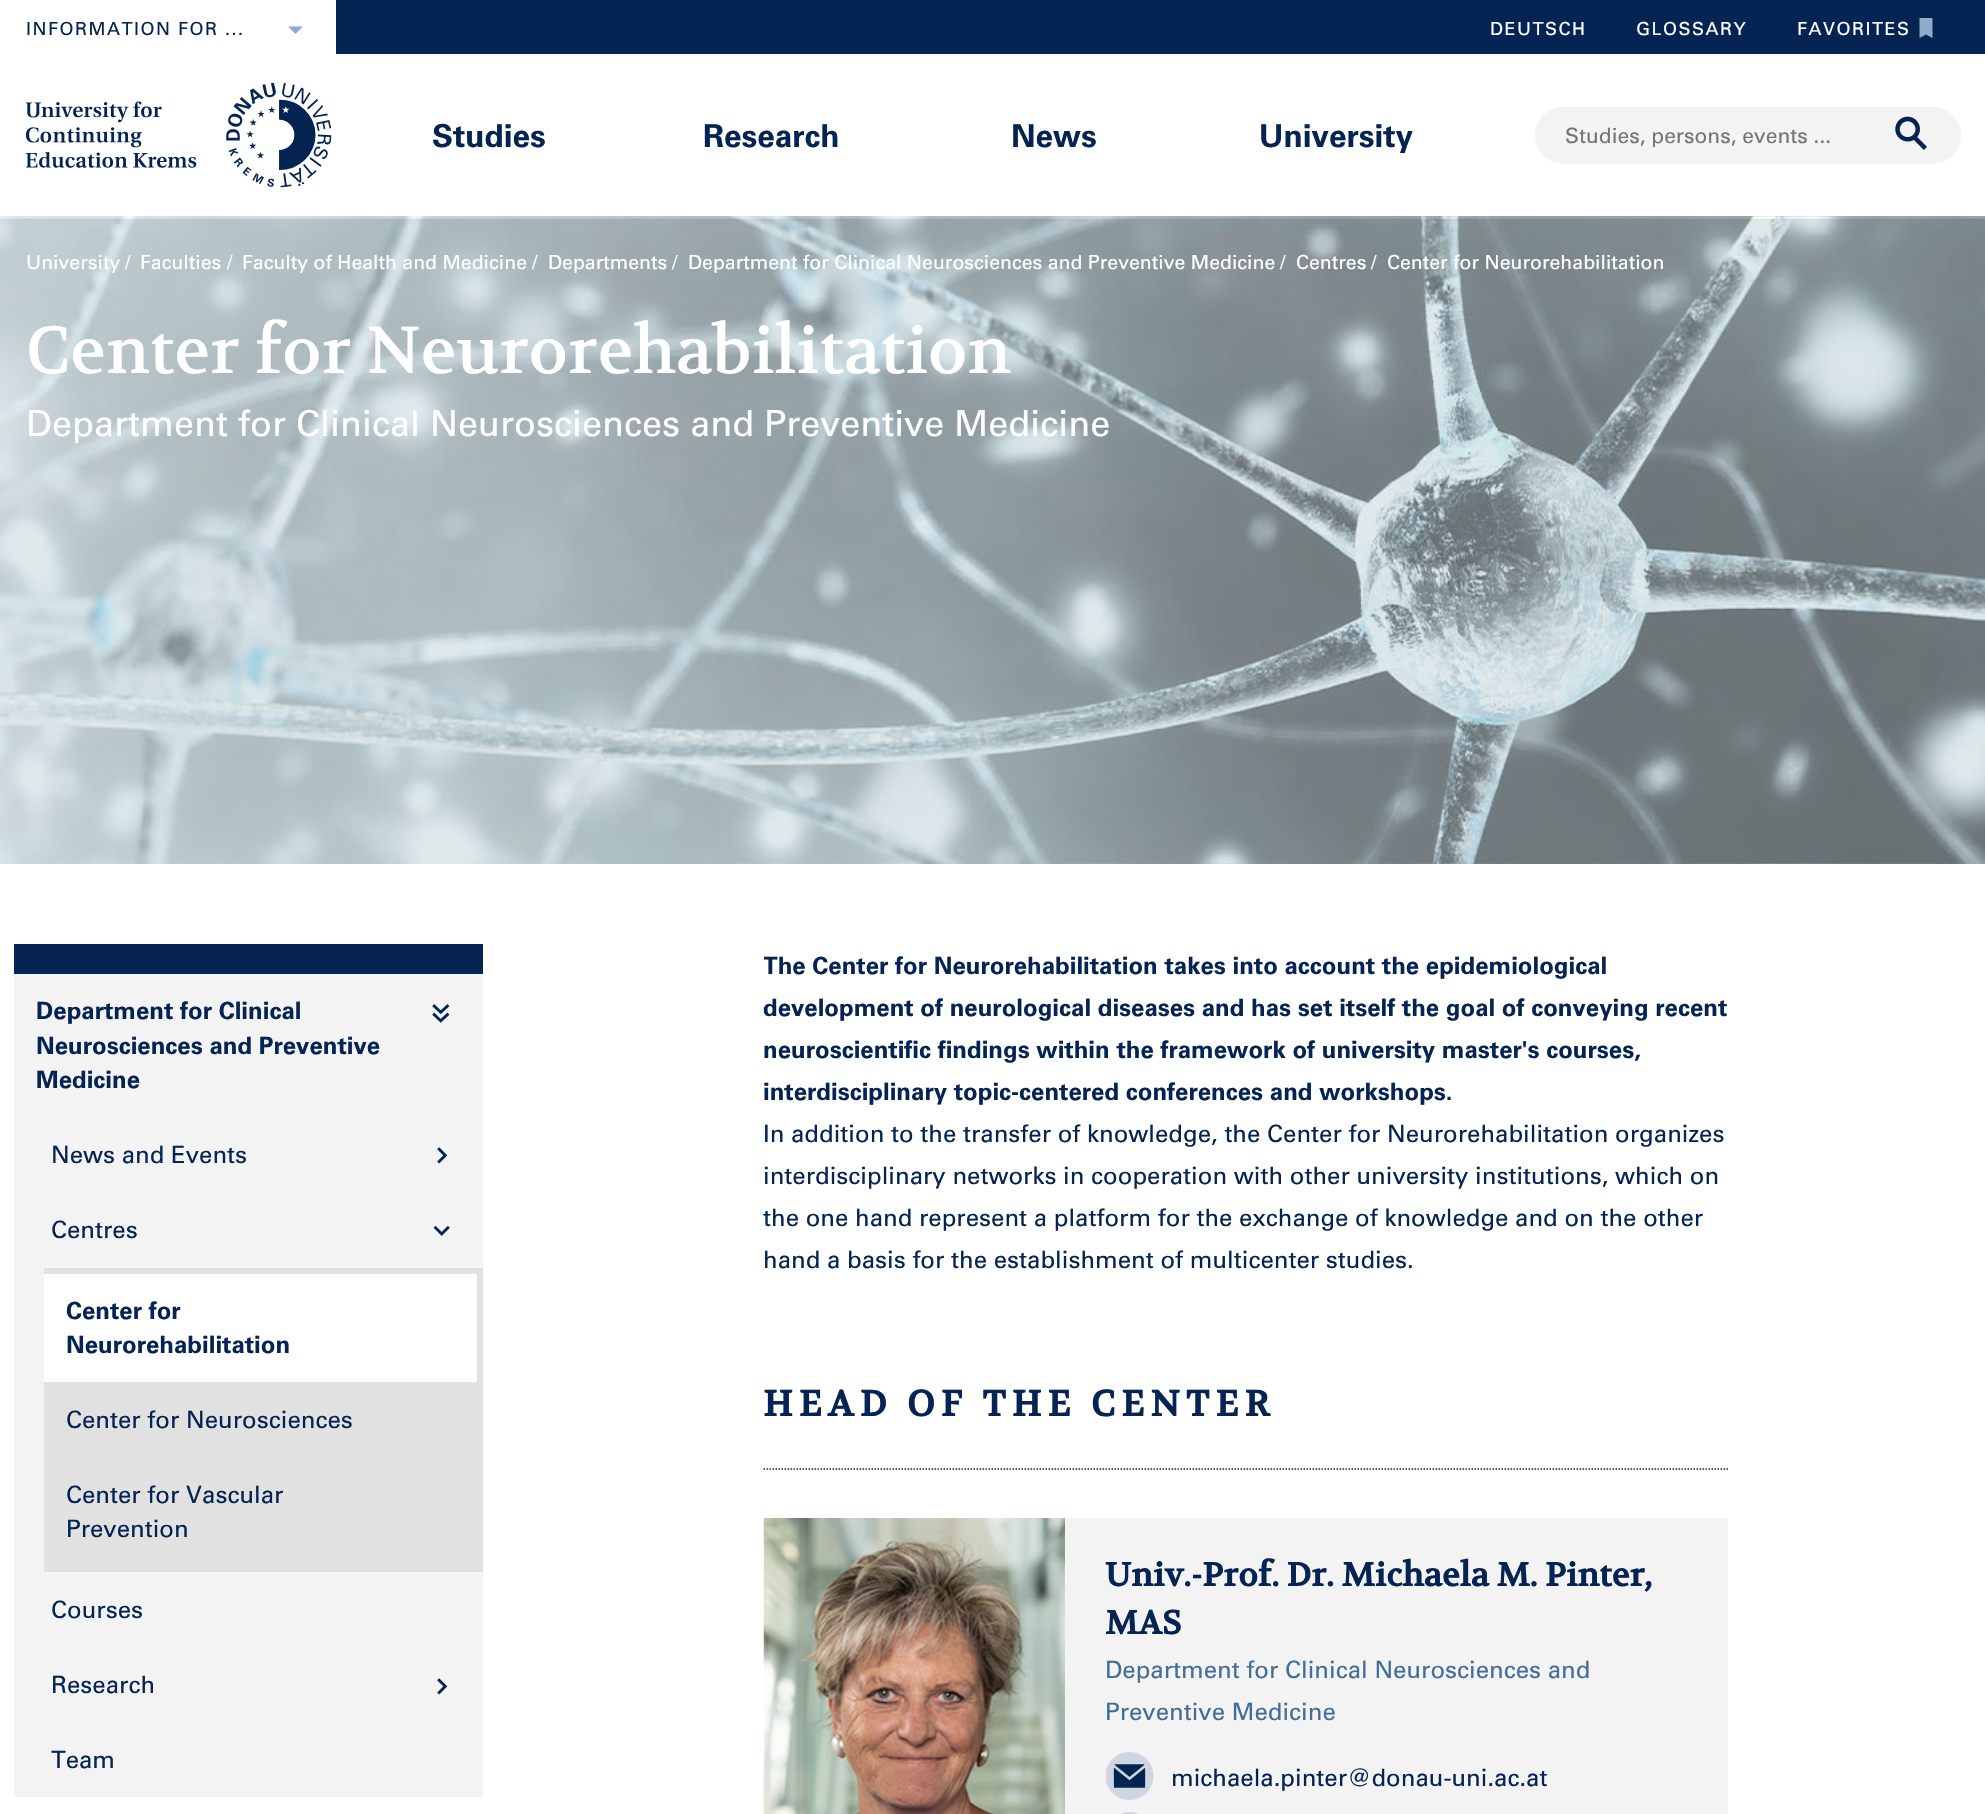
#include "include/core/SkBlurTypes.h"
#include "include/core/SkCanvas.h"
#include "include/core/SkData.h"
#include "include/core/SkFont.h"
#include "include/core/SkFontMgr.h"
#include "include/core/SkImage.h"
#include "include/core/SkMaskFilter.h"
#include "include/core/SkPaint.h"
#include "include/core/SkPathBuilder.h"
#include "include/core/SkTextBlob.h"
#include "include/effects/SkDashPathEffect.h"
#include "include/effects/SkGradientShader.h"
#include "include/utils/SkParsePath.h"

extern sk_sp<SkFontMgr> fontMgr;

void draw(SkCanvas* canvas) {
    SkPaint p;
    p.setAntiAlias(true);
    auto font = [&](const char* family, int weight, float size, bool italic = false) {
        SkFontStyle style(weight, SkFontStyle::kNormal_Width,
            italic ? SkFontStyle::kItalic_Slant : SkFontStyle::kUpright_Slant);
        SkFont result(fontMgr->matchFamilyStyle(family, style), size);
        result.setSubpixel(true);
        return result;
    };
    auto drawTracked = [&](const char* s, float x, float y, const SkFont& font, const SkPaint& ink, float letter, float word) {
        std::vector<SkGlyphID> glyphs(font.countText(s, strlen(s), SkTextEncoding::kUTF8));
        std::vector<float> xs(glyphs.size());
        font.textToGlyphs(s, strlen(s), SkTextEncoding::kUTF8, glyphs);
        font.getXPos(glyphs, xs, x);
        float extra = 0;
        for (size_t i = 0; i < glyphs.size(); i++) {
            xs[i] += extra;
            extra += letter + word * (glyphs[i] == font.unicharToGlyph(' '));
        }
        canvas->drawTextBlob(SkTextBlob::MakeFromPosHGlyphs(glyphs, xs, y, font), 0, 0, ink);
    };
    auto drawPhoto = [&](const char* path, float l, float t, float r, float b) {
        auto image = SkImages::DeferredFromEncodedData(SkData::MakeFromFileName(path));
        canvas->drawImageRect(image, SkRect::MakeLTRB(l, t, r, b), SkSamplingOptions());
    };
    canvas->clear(0xFFFFFFFF);
    p.setColor(0xFF052453);
    canvas->drawRect(SkRect::MakeLTRB(336, 0, 1985, 54), p);
    auto font1 = font("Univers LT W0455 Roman", 400, 18);
    drawTracked("INFORMATION FOR ...", 26, 35, font1, p, 1.5f, 0);
    p.setColor(0xFF8DACCC);
    canvas->drawPath(SkPathBuilder().moveTo(303, 26.5f).lineTo(288, 26.5f).lineTo(295.5f, 34).close().detach(), p);
    p.setColor(0xFFFFFFFF);
    {
        const struct { const char* s; float x, y; } items[] = {
            {"DEUTSCH", 1490, 35},
            {"GLOSSARY", 1636, 35},
            {"FAVORITES", 1797, 35},
        };
        for (auto [s, x, y] : items) {
            drawTracked(s, x, y, font1, p, 1.5f, 0);
        }
    }
    p.setColor(0xFF8DACCC);
    canvas->drawPath(SkPathBuilder().moveTo(1919.5f, 18).lineTo(1919.5f, 38).lineTo(1926, 34.5f).lineTo(1932.5f, 38).lineTo(1932.5f, 18).close().detach(), p);
    drawPhoto("media/1.png", 26, 83, 332, 188);
    auto font2 = font("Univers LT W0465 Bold", 700, 31.5f);
    p.setColor(0xFF052453);
    {
        const struct { const char* s; float x, y; } items[] = {
            {"Studies", 432, 147},
            {"Research", 703, 147},
            {"News", 1011, 147},
            {"University", 1259, 147},
        };
        for (auto [s, x, y] : items) {
            canvas->drawString(s, x, y, font2, p);
        }
    }
    p.setColor(0xFFF3F3F3);
    canvas->drawRoundRect(SkRect::MakeLTRB(1535, 107, 1961, 164), 28.5f, 28.5f, p);
    auto font3 = font("Univers LT W0455 Roman", 400, 21);
    p.setColor(0xFF757575);
    canvas->drawString("Studies, persons, events ...", 1565, 143, font3, p);
    drawPhoto("media/2.png", 1895, 116, 1927, 150);
    drawPhoto("media/3.png", 0, 216, 1985, 864);
    auto font4 = font("Univers LT W0455 Roman", 400, 19.5f);
    p.setColor(0xFFFFFFFF);
    {
        const struct { const char* s; float x, y; } items[] = {
            {"University", 26, 269},
            {"/", 125, 269},
            {"Faculties", 140, 269},
            {"/", 227, 269},
            {"Faculty of Health and Medicine", 242, 269},
            {"/", 532, 269},
            {"Departments", 548, 269},
            {"/", 672, 269},
            {"Department for Clinical Neurosciences and Preventive Medicine", 688, 269},
            {"/", 1280, 269},
            {"Centres", 1296, 269},
            {"/", 1371, 269},
            {"Center for Neurorehabilitation", 1387, 269},
        };
        for (auto [s, x, y] : items) {
            canvas->drawString(s, x, y, font4, p);
        }
    }
    auto font5 = font("Volkhov", 400, 66);
    canvas->drawString("Center for Neurorehabilitation", 26, 373, font5, p);
    auto font6 = font("Univers LT W0455 Roman", 400, 36);
    canvas->drawString("Department for Clinical Neurosciences and Preventive Medicine", 26, 436, font6, p);
    p.setColor(0xFFF3F3F3);
    canvas->drawRect(SkRect::MakeLTRB(14, 974, 483, 1797), p);
    p.setColor(0xFF052453);
    canvas->drawRect(SkRect::MakeLTRB(14, 944, 483, 974), p);
    auto font7 = font("Univers LT W0465 Bold", 700, 24);
    {
        const struct { const char* s; float x, y; } items[] = {
            {"Department for Clinical", 36, 1019},
            {"Neurosciences and Preventive", 36, 1054},
            {"Medicine", 36, 1088},
        };
        for (auto [s, x, y] : items) {
            canvas->drawString(s, x, y, font7, p);
        }
    }
    drawPhoto("media/4.png", 432, 1004, 450, 1023);
    auto font8 = font("Univers LT W0455 Roman", 400, 24);
    canvas->drawString("News and Events", 51, 1163, font8, p);
    drawPhoto("media/5.png", 437, 1147, 448, 1164);
    canvas->drawString("Centres", 51, 1238, font8, p);
    drawPhoto("media/6.png", 433, 1225, 450, 1236);
    p.setColor(0xFFE1E1E1);
    canvas->drawRect(SkRect::MakeLTRB(44, 1268, 483, 1572), p);
    p.setColor(0xFFFFFFFF);
    canvas->drawRect(SkRect::MakeLTRB(44, 1274, 477, 1382), p);
    p.setColor(0xFF052453);
    canvas->drawString("Center for", 66, 1319, font7, p);
    canvas->drawString("Neurorehabilitation", 66, 1353, font7, p);
    {
        const struct { const char* s; float x, y; } items[] = {
            {"Center for Neurosciences", 66, 1428},
            {"Center for Vascular", 66, 1503},
            {"Prevention", 66, 1537},
            {"Courses", 51, 1618},
            {"Research", 51, 1693},
        };
        for (auto [s, x, y] : items) {
            canvas->drawString(s, x, y, font8, p);
        }
    }
    drawPhoto("media/5.png", 437, 1678, 448, 1695);
    canvas->drawString("Team", 51, 1768, font8, p);
    canvas->save();
    canvas->clipRect(SkRect::MakeLTRB(764, 944, 1728, 1301));
    canvas->drawString("The Center for Neurorehabilitation takes into account the epidemiological", 763, 974, font7, p);
    canvas->restore();
    {
        const struct { const char* s; float x, y; } items[] = {
            {"development of neurological diseases and has set itself the goal of conveying recent", 763, 1016},
            {"neuroscientific findings within the framework of university master's courses,", 763, 1058},
            {"interdisciplinary topic-centered conferences and workshops.", 763, 1100},
        };
        for (auto [s, x, y] : items) {
            canvas->drawString(s, x, y, font7, p);
        }
    }
    {
        const struct { const char* s; float x, y; } items[] = {
            {"In addition to the transfer of knowledge, the Center for Neurorehabilitation organizes", 763, 1142},
            {"interdisciplinary networks in cooperation with other university institutions, which on", 763, 1184},
            {"the one hand represent a platform for the exchange of knowledge and on the other", 763, 1226},
            {"hand a basis for the establishment of multicenter studies.", 763, 1268},
        };
        for (auto [s, x, y] : items) {
            canvas->drawString(s, x, y, font8, p);
        }
    }
    p.setStyle(SkPaint::kStroke_Style);
    p.setStrokeWidth(1.5f);
    p.setPathEffect(SkDashPathEffect::Make({{1.5f, 1.5f}}, 0));
    canvas->drawPath(SkPathBuilder().moveTo(763.5f, 1469).lineTo(1728, 1469).detach(), p);
    p.setPathEffect(nullptr);
    auto font9 = font("Volkhov", 700, 36);
    p.setStyle(SkPaint::kFill_Style);
    drawTracked("HEAD OF THE CENTER", 763, 1416, font9, p, 6, 0);
    p.setColor(0xFFF3F3F3);
    canvas->drawRect(SkRect::MakeLTRB(1065, 1518, 1728, 1814), p);
    drawPhoto("media/7.png", 763, 1518, 1065, 1814);
    auto font10 = font("Volkhov", 700, 33);
    p.setColor(0xFF052453);
    canvas->drawString("Univ.-Prof. Dr. Michaela M. Pinter,", 1105, 1586, font10, p);
    canvas->drawString("MAS", 1105, 1634, font10, p);
    p.setColor(0xFF446E97);
    canvas->drawString("Department for Clinical Neurosciences and", 1105, 1678, font8, p);
    canvas->drawString("Preventive Medicine", 1105, 1720, font8, p);
    drawPhoto("media/8.png", 1106, 1752, 1154, 1800);
    p.setColor(0xFF052453);
    canvas->drawString("michaela.pinter@donau-uni.ac.at", 1171, 1786, font8, p);
    drawPhoto("media/9.png", 1120, 1812, 1139, 1814);
}
